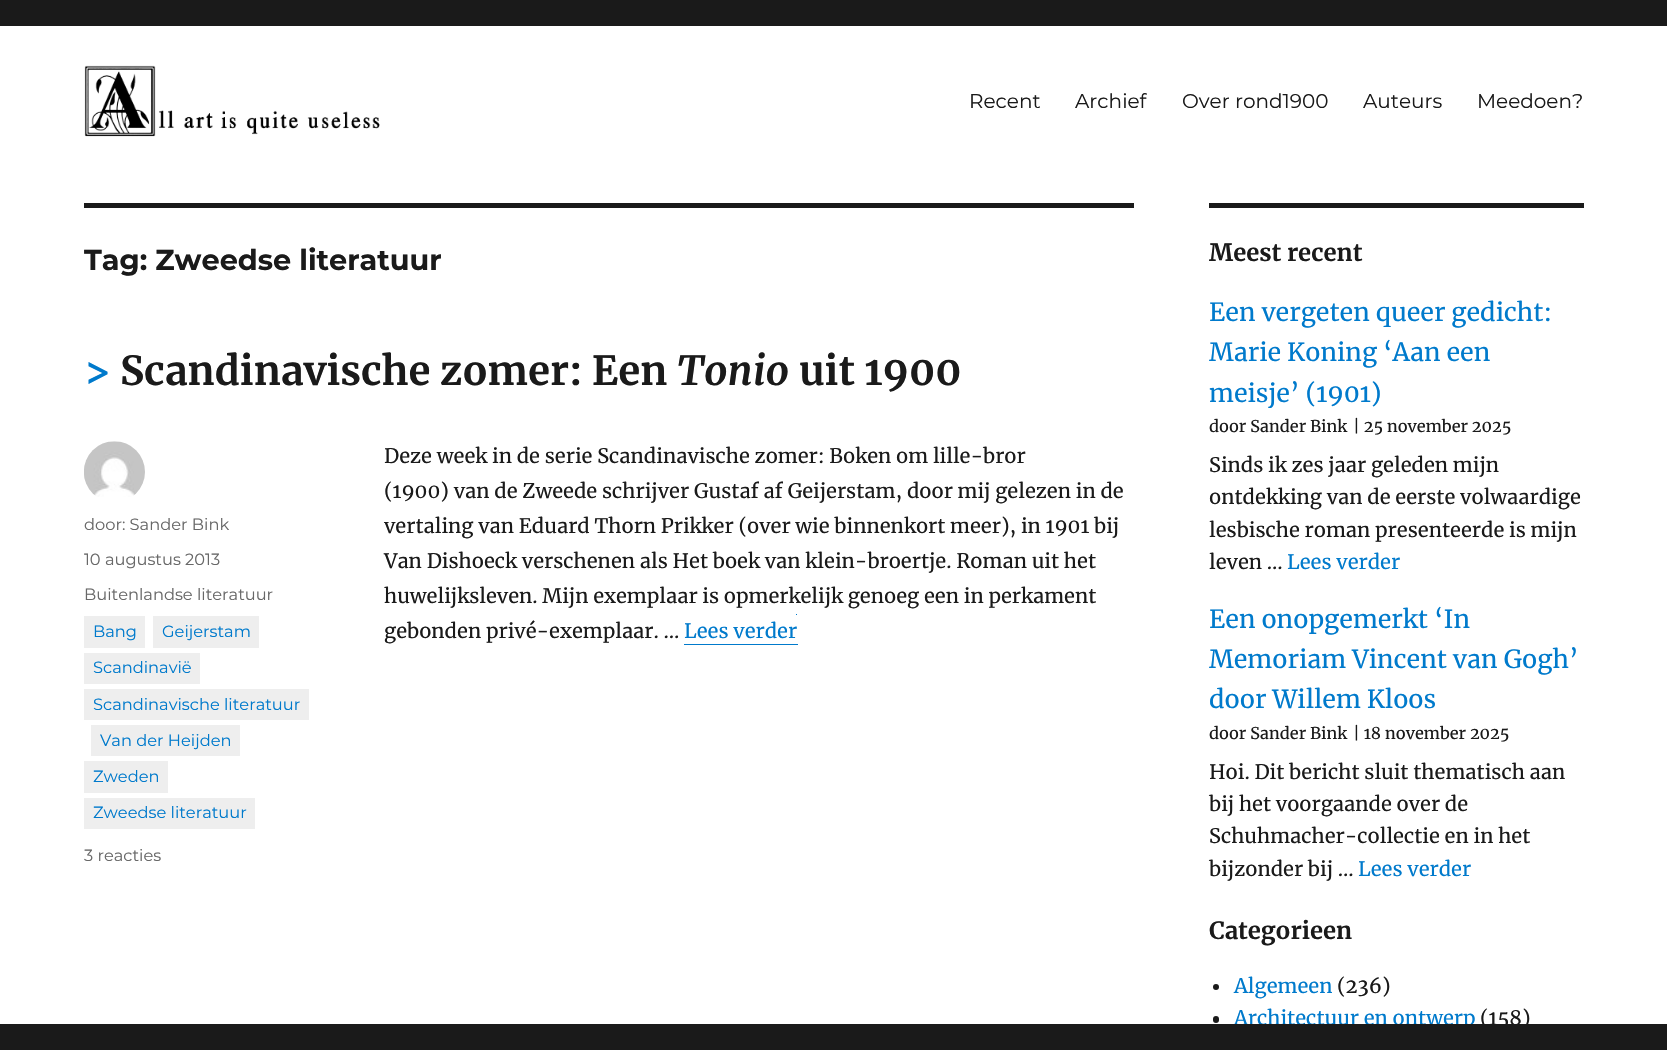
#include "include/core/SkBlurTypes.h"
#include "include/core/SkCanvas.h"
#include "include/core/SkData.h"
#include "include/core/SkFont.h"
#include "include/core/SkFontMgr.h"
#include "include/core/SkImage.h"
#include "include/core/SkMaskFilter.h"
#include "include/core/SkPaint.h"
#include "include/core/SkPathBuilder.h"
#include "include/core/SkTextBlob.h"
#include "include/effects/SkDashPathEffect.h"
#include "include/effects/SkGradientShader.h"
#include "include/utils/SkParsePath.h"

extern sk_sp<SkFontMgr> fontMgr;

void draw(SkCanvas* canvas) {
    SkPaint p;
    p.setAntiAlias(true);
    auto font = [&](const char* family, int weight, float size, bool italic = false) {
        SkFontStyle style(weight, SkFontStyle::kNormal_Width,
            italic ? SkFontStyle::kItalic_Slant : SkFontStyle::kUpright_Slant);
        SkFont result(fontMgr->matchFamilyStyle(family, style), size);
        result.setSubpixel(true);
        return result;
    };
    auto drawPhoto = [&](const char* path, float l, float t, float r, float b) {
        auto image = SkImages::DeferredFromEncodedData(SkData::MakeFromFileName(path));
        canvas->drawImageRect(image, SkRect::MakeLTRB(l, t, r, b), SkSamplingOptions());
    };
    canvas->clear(0xFFFFFFFF);
    p.setColor(0xFF1A1A1A);
    canvas->drawRect(SkRect::MakeLTRB(0, 0, 1667, 26), p);
    drawPhoto("media/1.png", 84, 65, 380, 137);
    auto font1 = font("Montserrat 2", 100, 20);
    {
        const struct { const char* s; float x, y; } items[] = {
            {"Recent", 969, 108},
            {"Archief", 1075, 108},
            {"Over rond1900", 1182, 108},
            {"Auteurs", 1363, 108},
            {"Meedoen?", 1477, 108},
        };
        for (auto [s, x, y] : items) {
            canvas->drawString(s, x, y, font1, p);
        }
    }
    canvas->drawRect(SkRect::MakeLTRB(84, 203, 1134, 208), p);
    auto font2 = font("Montserrat", 100, 28.75f);
    canvas->drawString("Tag: Zweedse literatuur", 84, 270, font2, p);
    auto font3 = font("Merriweather", 700, 40);
    p.setColor(0xFF007ACC);
    canvas->drawString(">", 84, 385, font3, p);
    p.setColor(0xFF1A1A1A);
    canvas->drawString("Scandinavische zomer: Een", 120, 385, font3, p);
    auto font4 = font("Merriweather", 700, 40, true);
    canvas->drawString("Tonio", 677, 385, font4, p);
    canvas->drawString("uit 1900", 799, 385, font3, p);
    drawPhoto("media/2.png", 84, 441, 145, 497);
    auto font5 = font("Montserrat 2", 100, 16.25f);
    p.setColor(0xFF686868);
    {
        const struct { const char* s; float x, y; } items[] = {
            {"door: Sander Bink", 84, 530},
            {"10 augustus 2013", 84, 565},
            {"Buitenlandse literatuur", 84, 600},
        };
        for (auto [s, x, y] : items) {
            canvas->drawString(s, x, y, font5, p);
        }
    }
    p.setColor(0xFFEEEEEE);
    canvas->drawRect(SkRect::MakeLTRB(84, 616, 145, 648), p);
    p.setColor(0xFF007ACC);
    canvas->drawString("Bang", 93, 637, font5, p);
    p.setColor(0xFFEEEEEE);
    canvas->drawRect(SkRect::MakeLTRB(153, 616, 259, 648), p);
    p.setColor(0xFF007ACC);
    canvas->drawString("Geijerstam", 162, 637, font5, p);
    p.setColor(0xFFEEEEEE);
    canvas->drawRect(SkRect::MakeLTRB(84, 653, 200, 684), p);
    p.setColor(0xFF007ACC);
    canvas->drawString("Scandinavië", 93, 673, font5, p);
    p.setColor(0xFFEEEEEE);
    canvas->drawRect(SkRect::MakeLTRB(84, 689, 309, 720), p);
    p.setColor(0xFF007ACC);
    canvas->drawString("Scandinavische literatuur", 93, 710, font5, p);
    p.setColor(0xFFEEEEEE);
    canvas->drawRect(SkRect::MakeLTRB(91, 725, 240, 756), p);
    p.setColor(0xFF007ACC);
    canvas->drawString("Van der Heijden", 100, 746, font5, p);
    p.setColor(0xFFEEEEEE);
    canvas->drawRect(SkRect::MakeLTRB(84, 761, 168, 793), p);
    p.setColor(0xFF007ACC);
    canvas->drawString("Zweden", 93, 782, font5, p);
    p.setColor(0xFFEEEEEE);
    canvas->drawRect(SkRect::MakeLTRB(84, 798, 255, 829), p);
    p.setColor(0xFF007ACC);
    canvas->drawString("Zweedse literatuur", 93, 818, font5, p);
    p.setColor(0xFF686868);
    canvas->drawString("3 reacties", 84, 861, font5, p);
    auto font6 = font("Merriweather", 400, 20);
    p.setColor(0xFF1A1A1A);
    {
        const struct { const char* s; float x, y; } items[] = {
            {"Deze week in de serie Scandinavische zomer: Boken om lille-bror", 384, 463},
            {"(1900) van de Zweede schrijver Gustaf af Geijerstam, door mij gelezen in de", 384, 498},
            {"vertaling van Eduard Thorn Prikker (over wie binnenkort meer), in 1901 bij", 384, 533},
            {"Van Dishoeck verschenen als Het boek van klein-broertje. Roman uit het", 384, 568},
            {"huwelijksleven. Mijn exemplaar is opmerkelijk genoeg een in perkament", 384, 603},
            {"gebonden privé-exemplaar. …", 384, 638},
        };
        for (auto [s, x, y] : items) {
            canvas->drawString(s, x, y, font6, p);
        }
    }
    p.setColor(0xFF007ACC);
    canvas->drawString("Lees verder", 684, 638, font6, p);
    canvas->drawPath(SkPathBuilder().moveTo(684, 644).lineTo(684, 645).lineTo(798, 645).lineTo(798, 620).lineTo(798, 644).close().detach(), p);
    canvas->drawRect(SkRect::MakeLTRB(796, 614, 797, 615), p);
    p.setColor(0xFF1A1A1A);
    canvas->drawRect(SkRect::MakeLTRB(1209, 203, 1584, 208), p);
    auto font7 = font("Merriweather", 700, 23.75f);
    canvas->drawString("Meest recent", 1209, 261, font7, p);
    auto font8 = font("Merriweather", 400, 25);
    p.setColor(0xFF007ACC);
    {
        const struct { const char* s; float x, y; } items[] = {
            {"Een vergeten queer gedicht:", 1209, 321},
            {"Marie Koning ‘Aan een", 1209, 361},
            {"meisje’ (1901)", 1209, 402},
        };
        for (auto [s, x, y] : items) {
            canvas->drawString(s, x, y, font8, p);
        }
    }
    auto font9 = font("Merriweather", 400, 16.25f);
    p.setColor(0xFF1A1A1A);
    canvas->drawString("door Sander Bink", 1209, 432, font9, p);
    canvas->drawString("| 25 november 2025", 1353, 432, font9, p);
    {
        const struct { const char* s; float x, y; } items[] = {
            {"Sinds ik zes jaar geleden mijn", 1209, 472},
            {"ontdekking van de eerste volwaardige", 1209, 504},
            {"lesbische roman presenteerde is mijn", 1209, 537},
            {"leven …", 1209, 569},
        };
        for (auto [s, x, y] : items) {
            canvas->drawString(s, x, y, font6, p);
        }
    }
    p.setColor(0xFF007ACC);
    canvas->drawString("Lees verder", 1287, 569, font6, p);
    {
        const struct { const char* s; float x, y; } items[] = {
            {"Een onopgemerkt ‘In", 1209, 628},
            {"Memoriam Vincent van Gogh’", 1209, 668},
            {"door Willem Kloos", 1209, 708},
        };
        for (auto [s, x, y] : items) {
            canvas->drawString(s, x, y, font8, p);
        }
    }
    p.setColor(0xFF1A1A1A);
    canvas->drawString("door Sander Bink", 1209, 739, font9, p);
    canvas->drawString("| 18 november 2025", 1353, 739, font9, p);
    {
        const struct { const char* s; float x, y; } items[] = {
            {"Hoi. Dit bericht sluit thematisch aan", 1209, 779},
            {"bij het voorgaande over de", 1209, 811},
            {"Schuhmacher-collectie en in het", 1209, 843},
            {"bijzonder bij …", 1209, 876},
        };
        for (auto [s, x, y] : items) {
            canvas->drawString(s, x, y, font6, p);
        }
    }
    p.setColor(0xFF007ACC);
    canvas->drawString("Lees verder", 1358, 876, font6, p);
    p.setColor(0xFF1A1A1A);
    canvas->drawString("Categorieen", 1209, 939, font7, p);
    canvas->drawCircle(1216, 987, 3, p);
    p.setColor(0xFF007ACC);
    canvas->drawString("Algemeen", 1234, 993, font6, p);
    p.setColor(0xFF1A1A1A);
    canvas->drawString("(236)", 1337, 993, font6, p);
    canvas->drawRoundRect(SkRect::MakeLTRB(1213, 1016, 1219, 1023), 3, 3, p);
    p.setColor(0xFF007ACC);
    canvas->drawString("Architectuur en ontwerp", 1234, 1025, font6, p);
    p.setColor(0xFF1A1A1A);
    canvas->drawString("(158)", 1480, 1025, font6, p);
    canvas->drawRect(SkRect::MakeLTRB(0, 1024, 1667, 1050), p);
}
